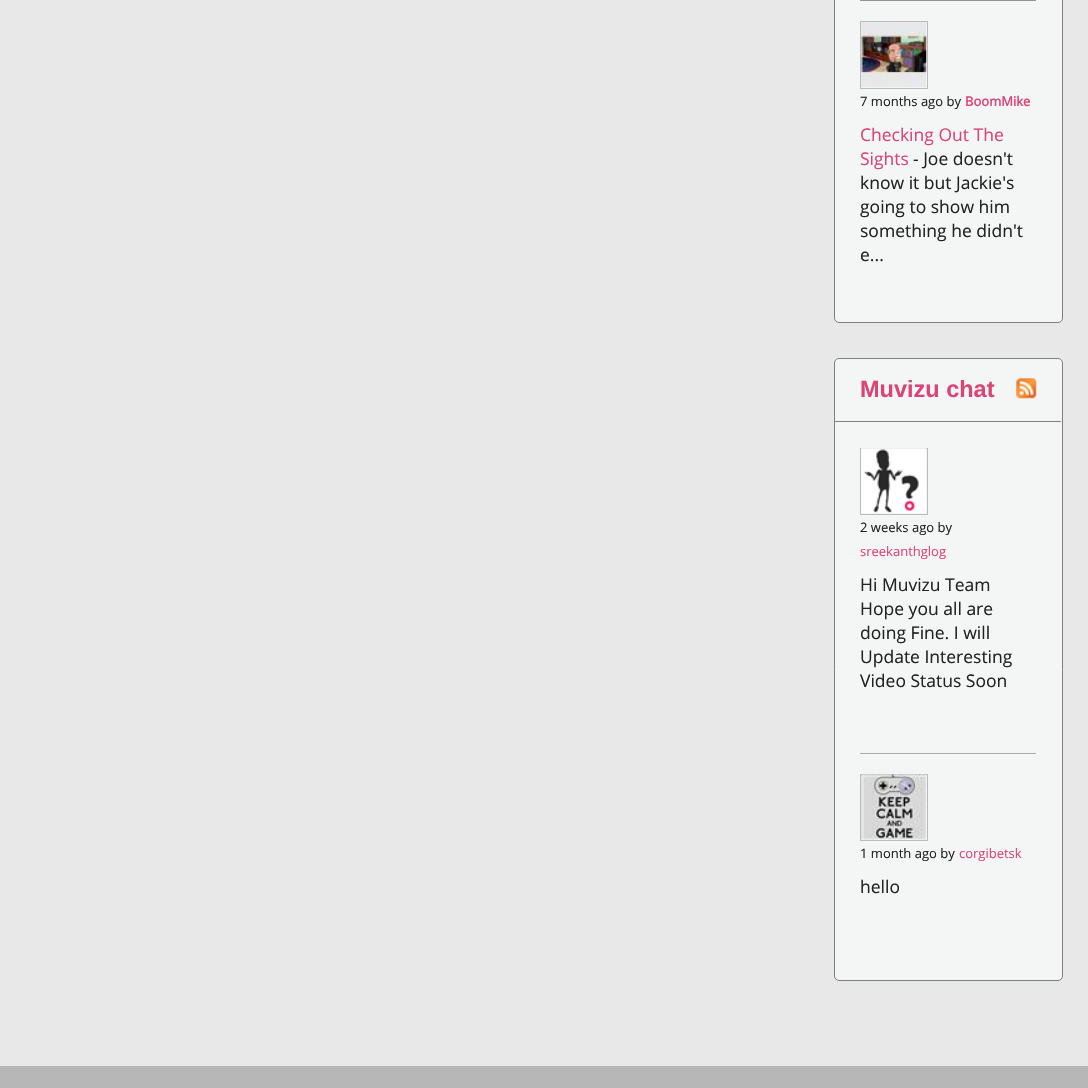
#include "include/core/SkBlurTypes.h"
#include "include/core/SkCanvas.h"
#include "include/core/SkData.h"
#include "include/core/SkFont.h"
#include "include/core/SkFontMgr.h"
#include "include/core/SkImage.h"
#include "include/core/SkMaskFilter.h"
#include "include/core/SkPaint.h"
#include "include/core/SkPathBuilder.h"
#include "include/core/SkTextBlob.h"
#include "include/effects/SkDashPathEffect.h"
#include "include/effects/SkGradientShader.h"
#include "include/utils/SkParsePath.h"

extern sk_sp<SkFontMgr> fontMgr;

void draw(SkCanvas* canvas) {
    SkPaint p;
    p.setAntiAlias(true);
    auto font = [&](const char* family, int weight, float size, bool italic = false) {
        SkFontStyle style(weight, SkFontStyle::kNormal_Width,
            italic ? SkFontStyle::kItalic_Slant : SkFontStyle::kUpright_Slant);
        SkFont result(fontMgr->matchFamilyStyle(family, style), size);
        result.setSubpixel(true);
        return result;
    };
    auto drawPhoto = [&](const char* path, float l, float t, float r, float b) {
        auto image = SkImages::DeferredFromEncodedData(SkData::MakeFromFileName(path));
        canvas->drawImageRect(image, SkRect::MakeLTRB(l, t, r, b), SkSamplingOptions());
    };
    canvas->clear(0xFFE8E8E8);
    p.setColor(0xFFF4F5F5);
    canvas->drawRoundRect(SkRect::MakeLTRB(834.5f, -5.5f, 1062.5f, 322.5f), 4.5f, 4.5f, p);
    p.setStyle(SkPaint::kStroke_Style);
    p.setStrokeWidth(1);
    p.setColor(0xFF7F7F7F);
    canvas->drawRoundRect(SkRect::MakeLTRB(834.5f, -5.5f, 1062.5f, 322.5f), 4.5f, 4.5f, p);
    p.setStyle(SkPaint::kFill_Style);
    p.setColor(0xFF929292);
    canvas->drawRect(SkRect::MakeLTRB(860, 0, 1036, 1), p);
    p.setStyle(SkPaint::kStroke_Style);
    p.setColor(0xFFBBBBBB);
    canvas->drawRect(SkRect::MakeLTRB(860.5f, 21.5f, 927.5f, 88.5f), p);
    drawPhoto("media/1.png", 861, 22, 927, 87);
    auto font1 = font("Open Sans", 400, 13);
    p.setStyle(SkPaint::kFill_Style);
    p.setColor(0xFF222222);
    canvas->drawString("7 months ago by", 860, 106, font1, p);
    auto font2 = font("Open Sans", 700, 13);
    p.setColor(0xFFDA4575);
    canvas->drawString("BoomMike", 965, 106, font2, p);
    auto font3 = font("Open Sans", 400, 17.5f);
    canvas->drawString("Checking Out The", 860, 141, font3, p);
    canvas->drawString("Sights", 860, 165, font3, p);
    p.setColor(0xFF222222);
    {
        const struct { const char* s; float x, y; } items[] = {
            {"- Joe doesn't", 913, 165},
            {"know it but Jackie's", 860, 189},
            {"going to show him", 860, 213},
            {"something he didn't", 860, 237},
            {"e...", 860, 261},
        };
        for (auto [s, x, y] : items) {
            canvas->drawString(s, x, y, font3, p);
        }
    }
    p.setColor(0xFFF4F5F5);
    canvas->drawRoundRect(SkRect::MakeLTRB(834.5f, 358.5f, 1062.5f, 980.5f), 4.5f, 4.5f, p);
    p.setStyle(SkPaint::kStroke_Style);
    p.setColor(0xFF7F7F7F);
    canvas->drawRoundRect(SkRect::MakeLTRB(834.5f, 358.5f, 1062.5f, 980.5f), 4.5f, 4.5f, p);
    p.setStyle(SkPaint::kFill_Style);
    canvas->drawRect(SkRect::MakeLTRB(835, 421, 1061, 422), p);
    auto font4 = font("Liberation Sans", 700, 23.5f);
    p.setColor(0xFFDA4575);
    canvas->drawString("Muvizu chat", 860, 397, font4, p);
    drawPhoto("media/2.png", 1016, 378, 1037, 399);
    p.setColor(0xFFABABAB);
    canvas->drawRect(SkRect::MakeLTRB(860, 753, 1036, 754), p);
    p.setStyle(SkPaint::kStroke_Style);
    p.setColor(0xFFBBBBBB);
    canvas->drawRect(SkRect::MakeLTRB(860.5f, 448.5f, 927.5f, 514.5f), p);
    drawPhoto("media/3.png", 861, 448, 927, 513);
    p.setStyle(SkPaint::kFill_Style);
    p.setColor(0xFF222222);
    canvas->drawString("2 weeks ago by", 860, 532, font1, p);
    p.setColor(0xFFDA4575);
    canvas->drawString("sreekanthglog", 860, 556, font1, p);
    p.setColor(0xFF222222);
    {
        const struct { const char* s; float x, y; } items[] = {
            {"Hi Muvizu Team", 860, 591},
            {"Hope you all are", 860, 615},
            {"doing Fine. I will", 860, 639},
            {"Update Interesting", 860, 663},
            {"Video Status Soon", 860, 687},
        };
        for (auto [s, x, y] : items) {
            canvas->drawString(s, x, y, font3, p);
        }
    }
    p.setStyle(SkPaint::kStroke_Style);
    p.setColor(0xFFBBBBBB);
    canvas->drawRect(SkRect::MakeLTRB(860.5f, 774.5f, 927.5f, 840.5f), p);
    drawPhoto("media/4.png", 861, 774, 927, 840);
    p.setStyle(SkPaint::kFill_Style);
    p.setColor(0xFF222222);
    canvas->drawString("1 month ago by", 860, 858, font1, p);
    p.setColor(0xFFDA4575);
    canvas->drawString("corgibetsk", 959, 858, font1, p);
    p.setColor(0xFF222222);
    canvas->drawString("hello", 860, 893, font3, p);
    p.setColor(0xFFB7B7B7);
    canvas->drawRect(SkRect::MakeLTRB(0, 1066, 1088, 1088), p);
}
